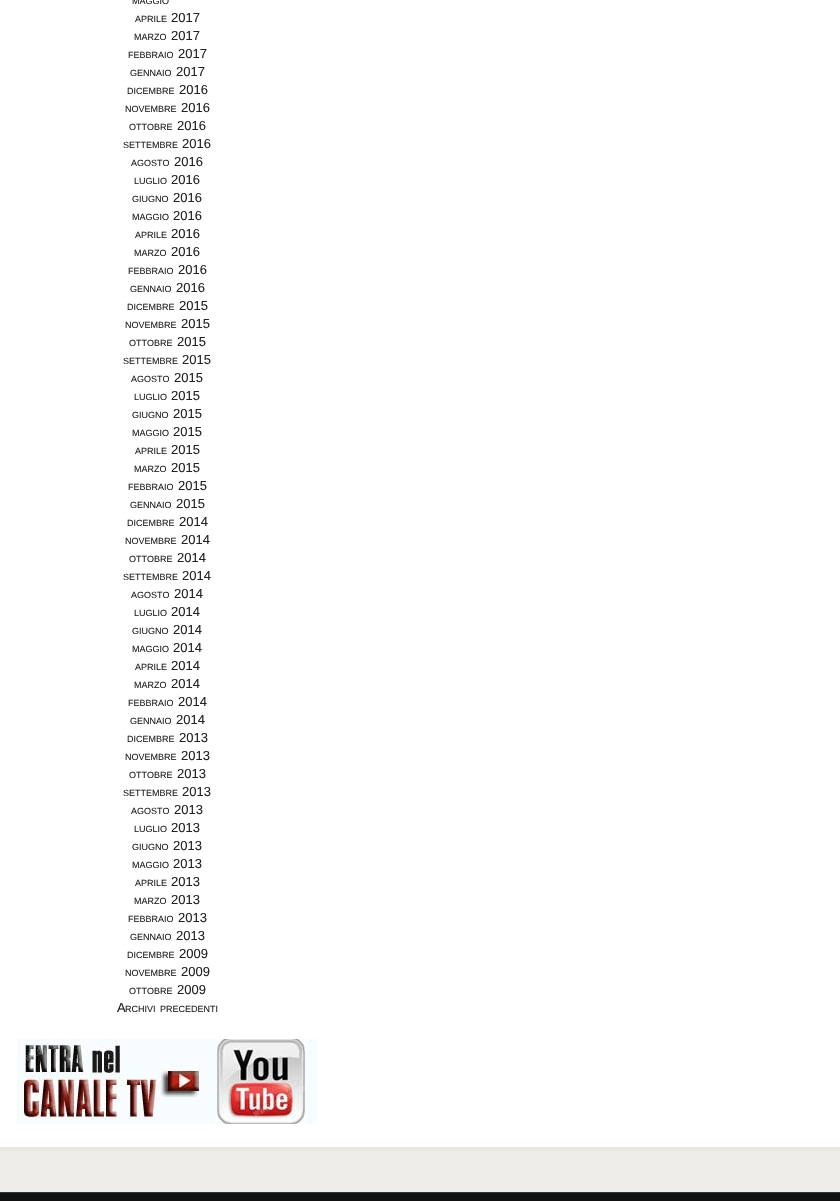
#include "include/core/SkBlurTypes.h"
#include "include/core/SkCanvas.h"
#include "include/core/SkData.h"
#include "include/core/SkFont.h"
#include "include/core/SkFontMgr.h"
#include "include/core/SkImage.h"
#include "include/core/SkMaskFilter.h"
#include "include/core/SkPaint.h"
#include "include/core/SkPathBuilder.h"
#include "include/core/SkTextBlob.h"
#include "include/effects/SkDashPathEffect.h"
#include "include/effects/SkGradientShader.h"
#include "include/utils/SkParsePath.h"

extern sk_sp<SkFontMgr> fontMgr;

void draw(SkCanvas* canvas) {
    SkPaint p;
    p.setAntiAlias(true);
    auto font = [&](const char* family, int weight, float size, bool italic = false) {
        SkFontStyle style(weight, SkFontStyle::kNormal_Width,
            italic ? SkFontStyle::kItalic_Slant : SkFontStyle::kUpright_Slant);
        SkFont result(fontMgr->matchFamilyStyle(family, style), size);
        result.setSubpixel(true);
        return result;
    };
    auto drawPhoto = [&](const char* path, float l, float t, float r, float b) {
        auto image = SkImages::DeferredFromEncodedData(SkData::MakeFromFileName(path));
        canvas->drawImageRect(image, SkRect::MakeLTRB(l, t, r, b), SkSamplingOptions());
    };
    canvas->clear(0xFFFFFFFF);
    auto font1 = font("Liberation Sans", 400, 9);
    p.setColor(0xFF222222);
    canvas->drawString("MAGGIO", 132, 4, font1, p);
    canvas->drawString("APRILE", 135, 22, font1, p);
    auto font2 = font("Liberation Sans", 400, 13);
    canvas->drawString("2017", 171, 22, font2, p);
    canvas->drawString("MARZO", 134, 40, font1, p);
    canvas->drawString("2017", 171, 40, font2, p);
    canvas->drawString("FEBBRAIO", 128, 58, font1, p);
    canvas->drawString("2017", 178, 58, font2, p);
    canvas->drawString("GENNAIO", 130, 76, font1, p);
    canvas->drawString("2017", 176, 76, font2, p);
    canvas->drawString("DICEMBRE", 127, 94, font1, p);
    canvas->drawString("2016", 179, 94, font2, p);
    canvas->drawString("NOVEMBRE", 125, 112, font1, p);
    canvas->drawString("2016", 181, 112, font2, p);
    canvas->drawString("OTTOBRE", 129, 130, font1, p);
    canvas->drawString("2016", 177, 130, font2, p);
    canvas->drawString("SETTEMBRE", 123, 148, font1, p);
    canvas->drawString("2016", 182, 148, font2, p);
    canvas->drawString("AGOSTO", 131, 166, font1, p);
    canvas->drawString("2016", 174, 166, font2, p);
    canvas->drawString("LUGLIO", 134, 184, font1, p);
    canvas->drawString("2016", 171, 184, font2, p);
    canvas->drawString("GIUGNO", 132, 202, font1, p);
    canvas->drawString("2016", 173, 202, font2, p);
    canvas->drawString("MAGGIO", 132, 220, font1, p);
    canvas->drawString("2016", 173, 220, font2, p);
    canvas->drawString("APRILE", 135, 238, font1, p);
    canvas->drawString("2016", 171, 238, font2, p);
    canvas->drawString("MARZO", 134, 256, font1, p);
    canvas->drawString("2016", 171, 256, font2, p);
    canvas->drawString("FEBBRAIO", 128, 274, font1, p);
    canvas->drawString("2016", 178, 274, font2, p);
    canvas->drawString("GENNAIO", 130, 292, font1, p);
    canvas->drawString("2016", 176, 292, font2, p);
    canvas->drawString("DICEMBRE", 127, 310, font1, p);
    canvas->drawString("2015", 179, 310, font2, p);
    canvas->drawString("NOVEMBRE", 125, 328, font1, p);
    canvas->drawString("2015", 181, 328, font2, p);
    canvas->drawString("OTTOBRE", 129, 346, font1, p);
    canvas->drawString("2015", 177, 346, font2, p);
    canvas->drawString("SETTEMBRE", 123, 364, font1, p);
    canvas->drawString("2015", 182, 364, font2, p);
    canvas->drawString("AGOSTO", 131, 382, font1, p);
    canvas->drawString("2015", 174, 382, font2, p);
    canvas->drawString("LUGLIO", 134, 400, font1, p);
    canvas->drawString("2015", 171, 400, font2, p);
    canvas->drawString("GIUGNO", 132, 418, font1, p);
    canvas->drawString("2015", 173, 418, font2, p);
    canvas->drawString("MAGGIO", 132, 436, font1, p);
    canvas->drawString("2015", 173, 436, font2, p);
    canvas->drawString("APRILE", 135, 454, font1, p);
    canvas->drawString("2015", 171, 454, font2, p);
    canvas->drawString("MARZO", 134, 472, font1, p);
    canvas->drawString("2015", 171, 472, font2, p);
    canvas->drawString("FEBBRAIO", 128, 490, font1, p);
    canvas->drawString("2015", 178, 490, font2, p);
    canvas->drawString("GENNAIO", 130, 508, font1, p);
    canvas->drawString("2015", 176, 508, font2, p);
    canvas->drawString("DICEMBRE", 127, 526, font1, p);
    canvas->drawString("2014", 179, 526, font2, p);
    canvas->drawString("NOVEMBRE", 125, 544, font1, p);
    canvas->drawString("2014", 181, 544, font2, p);
    canvas->drawString("OTTOBRE", 129, 562, font1, p);
    canvas->drawString("2014", 177, 562, font2, p);
    canvas->drawString("SETTEMBRE", 123, 580, font1, p);
    canvas->drawString("2014", 182, 580, font2, p);
    canvas->drawString("AGOSTO", 131, 598, font1, p);
    canvas->drawString("2014", 174, 598, font2, p);
    canvas->drawString("LUGLIO", 134, 616, font1, p);
    canvas->drawString("2014", 171, 616, font2, p);
    canvas->drawString("GIUGNO", 132, 634, font1, p);
    canvas->drawString("2014", 173, 634, font2, p);
    canvas->drawString("MAGGIO", 132, 652, font1, p);
    canvas->drawString("2014", 173, 652, font2, p);
    canvas->drawString("APRILE", 135, 670, font1, p);
    canvas->drawString("2014", 171, 670, font2, p);
    canvas->drawString("MARZO", 134, 688, font1, p);
    canvas->drawString("2014", 171, 688, font2, p);
    canvas->drawString("FEBBRAIO", 128, 706, font1, p);
    canvas->drawString("2014", 178, 706, font2, p);
    canvas->drawString("GENNAIO", 130, 724, font1, p);
    canvas->drawString("2014", 176, 724, font2, p);
    canvas->drawString("DICEMBRE", 127, 742, font1, p);
    canvas->drawString("2013", 179, 742, font2, p);
    canvas->drawString("NOVEMBRE", 125, 760, font1, p);
    canvas->drawString("2013", 181, 760, font2, p);
    canvas->drawString("OTTOBRE", 129, 778, font1, p);
    canvas->drawString("2013", 177, 778, font2, p);
    canvas->drawString("SETTEMBRE", 123, 796, font1, p);
    canvas->drawString("2013", 182, 796, font2, p);
    canvas->drawString("AGOSTO", 131, 814, font1, p);
    canvas->drawString("2013", 174, 814, font2, p);
    canvas->drawString("LUGLIO", 134, 832, font1, p);
    canvas->drawString("2013", 171, 832, font2, p);
    canvas->drawString("GIUGNO", 132, 850, font1, p);
    canvas->drawString("2013", 173, 850, font2, p);
    canvas->drawString("MAGGIO", 132, 868, font1, p);
    canvas->drawString("2013", 173, 868, font2, p);
    canvas->drawString("APRILE", 135, 886, font1, p);
    canvas->drawString("2013", 171, 886, font2, p);
    canvas->drawString("MARZO", 134, 904, font1, p);
    canvas->drawString("2013", 171, 904, font2, p);
    canvas->drawString("FEBBRAIO", 128, 922, font1, p);
    canvas->drawString("2013", 178, 922, font2, p);
    canvas->drawString("GENNAIO", 130, 940, font1, p);
    canvas->drawString("2013", 176, 940, font2, p);
    canvas->drawString("DICEMBRE", 127, 958, font1, p);
    canvas->drawString("2009", 179, 958, font2, p);
    canvas->drawString("NOVEMBRE", 125, 976, font1, p);
    canvas->drawString("2009", 181, 976, font2, p);
    canvas->drawString("OTTOBRE", 129, 994, font1, p);
    canvas->drawString("2009", 177, 994, font2, p);
    canvas->drawString("A", 117, 1012, font2, p);
    canvas->drawString("RCHIVI", 125, 1012, font1, p);
    canvas->drawString("PRECEDENTI", 160, 1012, font1, p);
    drawPhoto("media/1.png", 17, 1039, 317, 1124);
    {
        const struct { float l, t, r, b; SkColor color; } items[] = {
            {0, 1151, 840, 1192, 0xFFEFEDE8},
            {0, 1147, 840, 1151, 0xFFE9E7E2},
            {0, 1193, 840, 1201, 0xFF111111},
            {0, 1192, 840, 1193, 0xFF333333},
        };
        for (auto [l, t, r, b, color] : items) {
            p.setColor(color);
            canvas->drawRect(SkRect::MakeLTRB(l, t, r, b), p);
        }
    }
}
